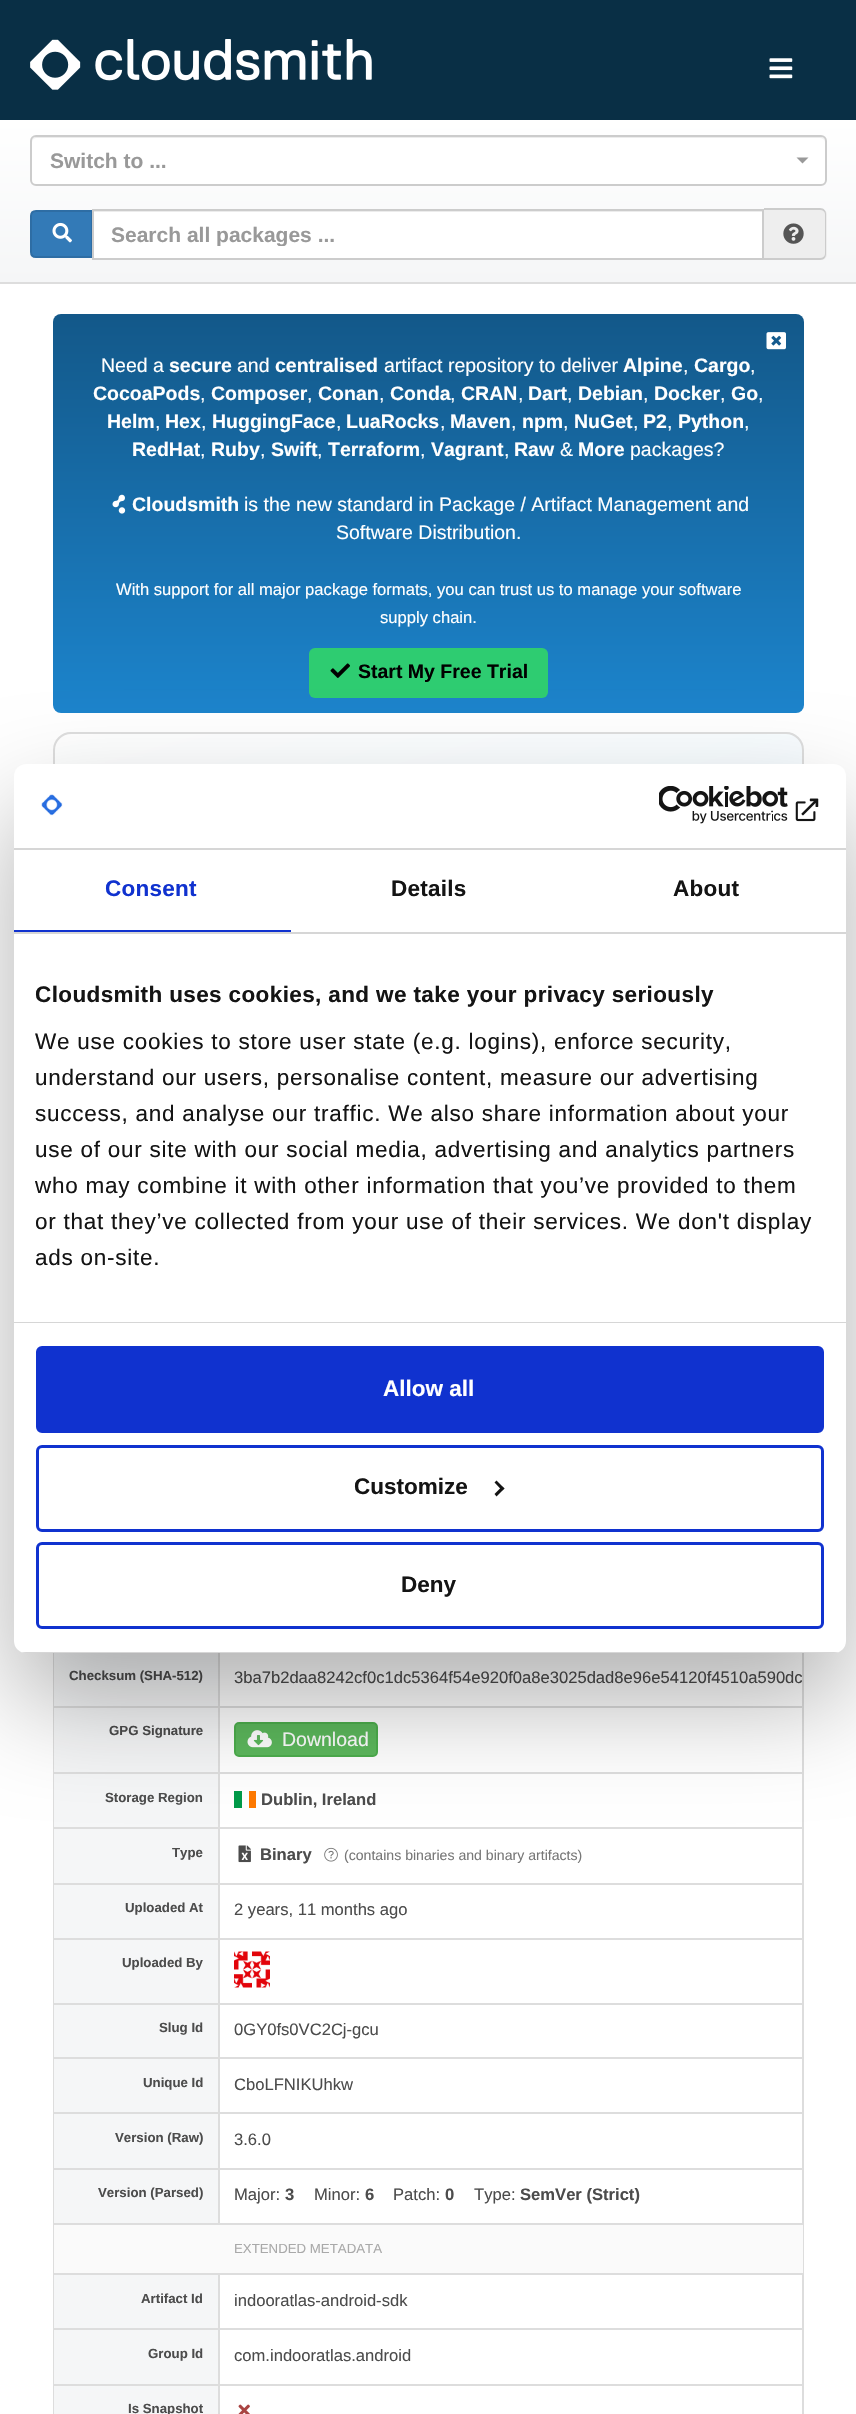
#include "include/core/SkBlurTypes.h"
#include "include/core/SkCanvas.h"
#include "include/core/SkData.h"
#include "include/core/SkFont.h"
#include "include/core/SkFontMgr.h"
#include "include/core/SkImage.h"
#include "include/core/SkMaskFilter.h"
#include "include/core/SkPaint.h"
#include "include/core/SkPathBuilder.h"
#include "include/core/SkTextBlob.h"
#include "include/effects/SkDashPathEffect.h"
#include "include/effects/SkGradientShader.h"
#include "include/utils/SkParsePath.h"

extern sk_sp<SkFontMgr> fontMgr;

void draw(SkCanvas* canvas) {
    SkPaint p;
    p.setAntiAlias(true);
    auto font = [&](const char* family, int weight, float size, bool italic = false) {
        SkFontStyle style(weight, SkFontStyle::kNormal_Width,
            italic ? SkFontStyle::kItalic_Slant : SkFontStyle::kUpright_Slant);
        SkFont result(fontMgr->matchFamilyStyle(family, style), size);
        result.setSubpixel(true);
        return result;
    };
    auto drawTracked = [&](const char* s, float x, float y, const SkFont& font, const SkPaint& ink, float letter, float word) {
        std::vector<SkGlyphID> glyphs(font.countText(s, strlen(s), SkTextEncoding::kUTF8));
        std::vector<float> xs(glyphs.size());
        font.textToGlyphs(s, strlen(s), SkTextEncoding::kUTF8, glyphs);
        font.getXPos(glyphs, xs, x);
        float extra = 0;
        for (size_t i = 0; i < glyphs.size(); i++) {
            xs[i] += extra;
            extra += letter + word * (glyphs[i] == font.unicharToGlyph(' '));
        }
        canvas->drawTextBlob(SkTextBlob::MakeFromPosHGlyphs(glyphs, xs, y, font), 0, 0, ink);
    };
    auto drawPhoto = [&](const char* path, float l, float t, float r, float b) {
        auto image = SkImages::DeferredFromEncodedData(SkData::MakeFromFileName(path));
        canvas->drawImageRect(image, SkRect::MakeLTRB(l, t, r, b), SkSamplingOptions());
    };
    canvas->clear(0xFF092F45);
    drawPhoto("media/1.png", 30, 39, 372, 90);
    drawPhoto("media/2.png", 769, 58, 793, 79);
    {
        const SkColor colors[] = {0xFFFFFFFF, 0xFFF5F6F7};
        const float stops[] = {0, 1};
        const SkPoint ends[] = {{428, 120}, {428, 282}};
        p.setShader(SkGradientShader::MakeLinear(ends, colors, stops, 2, SkTileMode::kClamp));
        p.setAlpha(255);
    }
    canvas->drawRect(SkRect::MakeLTRB(0, 120, 856, 282), p);
    p.setShader(nullptr);
    p.setColor(0xFFDDDDDD);
    canvas->drawRect(SkRect::MakeLTRB(0, 282, 856, 284), p);
    p.setColor(0xFFFFFFFF);
    canvas->drawRoundRect(SkRect::MakeLTRB(30, 135, 827, 186), 6, 6, p);
    p.setColor(0xFFECECEC);
    canvas->drawPath(SkPathBuilder().moveTo(36, 138).lineTo(820, 138).cubicTo(823, 138, 825, 140, 825, 142).cubicTo(825, 139, 823, 137, 820, 137).lineTo(37, 137).cubicTo(34, 137, 32, 139, 32, 142).cubicTo(32, 140, 34, 138, 36, 138).close().detach(), p);
    p.setStyle(SkPaint::kStroke_Style);
    p.setStrokeWidth(2);
    p.setColor(0xFFCCCCCC);
    canvas->drawRoundRect(SkRect::MakeLTRB(31, 136, 826, 185), 5, 5, p);
    auto font1 = font("Liberation Sans", 700, 21);
    p.setStyle(SkPaint::kFill_Style);
    p.setColor(0xFF999999);
    canvas->drawString("Switch to ...", 50, 168, font1, p);
    canvas->drawPath(SkPathBuilder().moveTo(796.5f, 157.5f).lineTo(808.5f, 157.5f).lineTo(802.5f, 163.5f).close().detach(), p);
    p.setColor(0xFF337AB7);
    canvas->drawPath(SkPathBuilder().moveTo(36, 211).lineTo(92, 211).lineTo(92, 257).lineTo(36, 257).cubicTo(33, 257, 31, 255, 31, 252).lineTo(31, 216).cubicTo(31, 213, 33, 211, 36, 211).close().detach(), p);
    p.setStyle(SkPaint::kStroke_Style);
    p.setColor(0xFF2E6DA4);
    canvas->drawPath(SkPathBuilder().moveTo(36, 211).lineTo(92, 211).lineTo(92, 257).lineTo(36, 257).cubicTo(33, 257, 31, 255, 31, 252).lineTo(31, 216).cubicTo(31, 213, 33, 211, 36, 211).close().detach(), p);
    drawPhoto("media/3.png", 52, 222, 72, 243);
    p.setStyle(SkPaint::kFill_Style);
    p.setColor(0xFFFFFFFF);
    canvas->drawRect(SkRect::MakeLTRB(94, 212, 762, 258), p);
    p.setColor(0xFFECECEC);
    canvas->drawRect(SkRect::MakeLTRB(93, 211, 762, 212), p);
    p.setStyle(SkPaint::kStroke_Style);
    p.setColor(0xFFCCCCCC);
    canvas->drawRect(SkRect::MakeLTRB(93, 210, 763, 259), p);
    canvas->save();
    canvas->clipRect(SkRect::MakeLTRB(111, 222, 744, 246));
    p.setStyle(SkPaint::kFill_Style);
    p.setColor(0xFF999999);
    canvas->drawString("Search all packages ...", 111, 242, font1, p);
    canvas->restore();
    p.setColor(0xFFEEEEEE);
    canvas->drawPath(SkPathBuilder().moveTo(764, 209).lineTo(821, 209).cubicTo(824.5f, 209, 827, 211.5f, 827, 215).lineTo(827, 254).cubicTo(827, 257.5f, 824.5f, 260, 821, 260).lineTo(764, 260).close().detach(), p);
    p.setColor(0xFFCCCCCC);
    canvas->drawPath(SkPathBuilder(SkPathFillType::kEvenOdd).moveTo(764, 208).lineTo(820, 208).cubicTo(824, 208, 826, 211, 826, 214).lineTo(826, 254).cubicTo(826, 257, 824, 260, 820, 260).lineTo(764, 260).close().moveTo(764, 210).lineTo(820, 210).cubicTo(823, 210, 825, 212, 825, 214).lineTo(825, 254).cubicTo(825, 256, 823, 258, 820, 258).lineTo(764, 258).close().detach(), p);
    drawPhoto("media/4.png", 783, 223, 804, 244);
    p.setColor(0xFFFFFFFF);
    canvas->drawRect(SkRect::MakeLTRB(0, 284, 856, 2414), p);
    {
        const SkColor colors[] = {0xFF135889, 0xFF1C84CC};
        const float stops[] = {0, 1};
        const SkPoint ends[] = {{428, 313}, {428, 713}};
        p.setShader(SkGradientShader::MakeLinear(ends, colors, stops, 2, SkTileMode::kClamp));
        p.setAlpha(255);
    }
    canvas->drawRoundRect(SkRect::MakeLTRB(53, 314, 804, 713), 8, 8, p);
    drawPhoto("media/5.png", 766, 332, 786, 350);
    auto font2 = font("Liberation Sans", 400, 19.5f);
    p.setShader(nullptr);
    p.setColor(0xFFFFFFFF);
    canvas->drawString("Need a", 101, 372, font2, p);
    auto font3 = font("Liberation Sans", 700, 19.5f);
    canvas->drawString("secure", 169, 372, font3, p);
    canvas->drawString("and", 237, 372, font2, p);
    canvas->drawString("centralised", 275, 372, font3, p);
    canvas->drawString("artifact repository to deliver", 384, 372, font2, p);
    canvas->drawString("Alpine", 623, 372, font3, p);
    canvas->drawString(",", 683, 372, font2, p);
    canvas->drawString("Cargo", 694, 372, font3, p);
    canvas->drawString(",", 750, 372, font2, p);
    canvas->drawString("CocoaPods", 93, 400, font3, p);
    canvas->drawString(",", 200, 400, font2, p);
    canvas->drawString("Composer", 211, 400, font3, p);
    canvas->drawString(",", 307, 400, font2, p);
    canvas->drawString("Conan", 318, 400, font3, p);
    canvas->drawString(",", 379, 400, font2, p);
    canvas->drawString("Conda", 390, 400, font3, p);
    canvas->drawString(",", 450, 400, font2, p);
    canvas->drawString("CRAN", 461, 400, font3, p);
    canvas->drawString(",", 518, 400, font2, p);
    canvas->drawString("Dart", 528, 400, font3, p);
    canvas->drawString(",", 567, 400, font2, p);
    canvas->drawString("Debian", 578, 400, font3, p);
    canvas->drawString(",", 643, 400, font2, p);
    canvas->drawString("Docker", 654, 400, font3, p);
    canvas->drawString(",", 720, 400, font2, p);
    canvas->drawString("Go", 731, 400, font3, p);
    canvas->drawString(",", 758, 400, font2, p);
    canvas->drawString("Helm", 107, 428, font3, p);
    canvas->drawString(",", 155, 428, font2, p);
    canvas->drawString("Hex", 165, 428, font3, p);
    canvas->drawString(",", 201, 428, font2, p);
    canvas->drawString("HuggingFace", 212, 428, font3, p);
    canvas->drawString(",", 336, 428, font2, p);
    canvas->drawString("LuaRocks", 346, 428, font3, p);
    canvas->drawString(",", 440, 428, font2, p);
    canvas->drawString("Maven", 450, 428, font3, p);
    canvas->drawString(",", 511, 428, font2, p);
    canvas->drawString("npm", 522, 428, font3, p);
    canvas->drawString(",", 563, 428, font2, p);
    canvas->drawString("NuGet", 574, 428, font3, p);
    canvas->drawString(",", 633, 428, font2, p);
    canvas->drawString("P2", 643, 428, font3, p);
    canvas->drawString(",", 667, 428, font2, p);
    canvas->drawString("Python", 678, 428, font3, p);
    canvas->drawString(",", 744, 428, font2, p);
    canvas->drawString("RedHat", 132, 456, font3, p);
    canvas->drawString(",", 200, 456, font2, p);
    canvas->drawString("Ruby", 211, 456, font3, p);
    canvas->drawString(",", 260, 456, font2, p);
    canvas->drawString("Swift", 271, 456, font3, p);
    canvas->drawString(",", 317, 456, font2, p);
    canvas->drawString("Terraform", 328, 456, font3, p);
    canvas->drawString(",", 420, 456, font2, p);
    canvas->drawString("Vagrant", 431, 456, font3, p);
    canvas->drawString(",", 504, 456, font2, p);
    canvas->drawString("Raw", 514, 456, font3, p);
    canvas->drawString("&", 560, 456, font2, p);
    canvas->drawString("More", 578, 456, font3, p);
    canvas->drawString("packages?", 630, 456, font2, p);
    drawPhoto("media/6.png", 112, 494, 126, 514);
    canvas->drawString("Cloudsmith", 132, 511, font3, p);
    canvas->drawString("is the new standard in Package / Artifact Management and", 244, 511, font2, p);
    canvas->drawString("Software Distribution.", 336, 539, font2, p);
    auto font4 = font("Liberation Sans", 400, 16.6f);
    canvas->drawString("With support for all major package formats, you can trust us to manage your software", 116, 595, font4, p);
    canvas->drawString("supply chain.", 380, 623, font4, p);
    p.setColor(0xFF2ECC71);
    canvas->drawRoundRect(SkRect::MakeLTRB(309, 648, 548, 698), 6, 6, p);
    drawPhoto("media/7.png", 330, 663, 350, 678);
    p.setColor(0xFF000000);
    canvas->drawString("Start My Free Trial", 358, 678, font3, p);
    canvas->save();
    canvas->clipPath(SkPathBuilder().moveTo(71, 732).lineTo(786, 732).cubicTo(796, 732, 804, 740, 804, 750).lineTo(804, 930).cubicTo(804, 940, 796, 948, 786, 948).lineTo(71, 948).cubicTo(61, 948, 53, 940, 53, 930).lineTo(53, 750).cubicTo(53, 740, 61, 732, 71, 732).close().detach(), true);
    {
        const SkColor colors[] = {0x00F1FAFF, 0xFFF1FAFF};
        const float stops[] = {0, 1};
        const SkPoint ends[] = {{372, 643}, {484, 1037}};
        p.setShader(SkGradientShader::MakeLinear(ends, colors, stops, 2, SkTileMode::kClamp));
        p.setAlpha(255);
    }
    canvas->drawRect(SkRect::MakeLTRB(55, 734, 803, 764), p);
    canvas->restore();
    p.setStyle(SkPaint::kStroke_Style);
    p.setShader(nullptr);
    p.setColor(0xFFDDDDDD);
    canvas->drawRoundRect(SkRect::MakeLTRB(54, 733, 803, 947), 17, 17, p);
    canvas->drawRect(SkRect::MakeLTRB(54, 1272, 803, 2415), p);
    p.setStyle(SkPaint::kFill_Style);
    p.setColor(0xFFF5F6F7);
    canvas->drawRect(SkRect::MakeLTRB(54, 1653, 218, 1706), p);
    auto font5 = font("Liberation Sans", 700, 13.25f);
    p.setColor(0xFF4C4C4C);
    canvas->drawString("Checksum (SHA-512)", 69, 1680, font5, p);
    canvas->drawString("3ba7b2daa8242cf0c1dc5364f54e920f0a8e3025dad8e96e54120f4510a590dc", 234, 1683, font4, p);
    {
        const struct { float l, t, r, b; SkColor color; } items[] = {
            {54, 1708, 218, 1772, 0xFFF5F6F7},
            {54, 1706, 803, 1708, 0xFFDDDDDD},
            {54, 1772, 803, 1774, 0xFFDDDDDD},
            {54, 1827, 803, 1829, 0xFFDDDDDD},
            {54, 1883, 803, 1885, 0xFFDDDDDD},
            {54, 1938, 803, 1940, 0xFFDDDDDD},
            {54, 2003, 803, 2005, 0xFFDDDDDD},
            {54, 2057, 803, 2059, 0xFFDDDDDD},
            {54, 2112, 803, 2114, 0xFFDDDDDD},
            {54, 2168, 803, 2170, 0xFFDDDDDD},
            {54, 2223, 803, 2225, 0xFFDDDDDD},
            {218, 2168, 220, 2225, 0xFFDDDDDD},
            {218, 2112, 220, 2169, 0xFFDDDDDD},
            {218, 2057, 220, 2114, 0xFFDDDDDD},
            {218, 2003, 220, 2058, 0xFFDDDDDD},
            {218, 1938, 220, 2004, 0xFFDDDDDD},
            {218, 1883, 220, 1940, 0xFFDDDDDD},
            {218, 1827, 220, 1884, 0xFFDDDDDD},
            {218, 1772, 220, 1829, 0xFFDDDDDD},
            {218, 1650, 220, 1773, 0xFFDDDDDD},
        };
        for (auto [l, t, r, b, color] : items) {
            p.setColor(color);
            canvas->drawRect(SkRect::MakeLTRB(l, t, r, b), p);
        }
    }
    p.setColor(0xFF4C4C4C);
    canvas->drawString("GPG Signature", 109, 1735, font5, p);
    p.setColor(0xFF5CB85C);
    canvas->drawRoundRect(SkRect::MakeLTRB(235, 1723, 377, 1756), 4, 4, p);
    p.setStyle(SkPaint::kStroke_Style);
    p.setColor(0xFF4CAE4C);
    canvas->drawRoundRect(SkRect::MakeLTRB(235, 1723, 377, 1756), 4, 4, p);
    drawPhoto("media/8.png", 247, 1730, 272, 1748);
    p.setStyle(SkPaint::kFill_Style);
    p.setColor(0xFFFFFFFF);
    canvas->drawString("Download", 282, 1746, font2, p);
    p.setColor(0xFFF5F6F7);
    canvas->drawRect(SkRect::MakeLTRB(54, 1774, 218, 1827), p);
    p.setColor(0xFF4C4C4C);
    canvas->drawString("Storage Region", 105, 1802, font5, p);
    p.setColor(0xFF009A49);
    canvas->drawRect(SkRect::MakeLTRB(234, 1791, 242, 1808), p);
    p.setColor(0xFFFF7900);
    canvas->drawRect(SkRect::MakeLTRB(249, 1791, 256, 1808), p);
    auto font6 = font("Liberation Sans", 700, 16.6f);
    p.setColor(0xFF4C4C4C);
    canvas->drawString("Dublin, Ireland", 261, 1805, font6, p);
    p.setColor(0xFFF5F6F7);
    canvas->drawRect(SkRect::MakeLTRB(54, 1829, 218, 1883), p);
    p.setColor(0xFF4C4C4C);
    canvas->drawString("Type", 172, 1857, font5, p);
    drawPhoto("media/9.png", 238, 1845, 251, 1863);
    canvas->drawString("Binary", 260, 1860, font6, p);
    drawPhoto("media/10.png", 324, 1847, 338, 1862);
    auto font7 = font("Liberation Sans", 400, 14.1f);
    p.setColor(0xFF777777);
    canvas->drawString("(contains binaries and binary artifacts)", 344, 1860, font7, p);
    p.setColor(0xFFF5F6F7);
    canvas->drawRect(SkRect::MakeLTRB(54, 1885, 218, 1938), p);
    p.setColor(0xFF4C4C4C);
    canvas->drawString("Uploaded At", 125, 1912, font5, p);
    canvas->drawString("2 years, 11 months ago", 234, 1915, font4, p);
    drawPhoto("media/11.png", 234, 1951, 270, 1988);
    p.setColor(0xFFF5F6F7);
    canvas->drawRect(SkRect::MakeLTRB(54, 1940, 218, 2003), p);
    p.setColor(0xFF4C4C4C);
    canvas->drawString("Uploaded By", 122, 1967, font5, p);
    p.setColor(0xFFF5F6F7);
    canvas->drawRect(SkRect::MakeLTRB(54, 2005, 218, 2057), p);
    p.setColor(0xFF4C4C4C);
    canvas->drawString("Slug Id", 159, 2032, font5, p);
    canvas->drawString("0GY0fs0VC2Cj-gcu", 234, 2035, font4, p);
    p.setColor(0xFFF5F6F7);
    canvas->drawRect(SkRect::MakeLTRB(54, 2059, 218, 2112), p);
    p.setColor(0xFF4C4C4C);
    canvas->drawString("Unique Id", 143, 2087, font5, p);
    canvas->drawString("CboLFNIKUhkw", 234, 2090, font4, p);
    p.setColor(0xFFF5F6F7);
    canvas->drawRect(SkRect::MakeLTRB(54, 2114, 218, 2168), p);
    p.setColor(0xFF4C4C4C);
    canvas->drawString("Version (Raw)", 115, 2142, font5, p);
    canvas->drawString("3.6.0", 234, 2145, font4, p);
    p.setColor(0xFFF5F6F7);
    canvas->drawRect(SkRect::MakeLTRB(54, 2170, 218, 2223), p);
    p.setColor(0xFF4C4C4C);
    canvas->drawString("Version (Parsed)", 98, 2197, font5, p);
    canvas->drawString("Major:", 234, 2200, font4, p);
    canvas->drawString("3", 285, 2200, font6, p);
    canvas->drawString("Minor:", 314, 2200, font4, p);
    canvas->drawString("6", 365, 2200, font6, p);
    canvas->drawString("Patch:", 393, 2200, font4, p);
    canvas->drawString("0", 445, 2200, font6, p);
    canvas->drawString("Type:", 474, 2200, font4, p);
    canvas->drawString("SemVer (Strict)", 520, 2200, font6, p);
    p.setColor(0xFFFAFAFA);
    canvas->drawRect(SkRect::MakeLTRB(54, 2225, 803, 2273), p);
    auto font8 = font("Liberation Sans", 400, 13.25f);
    p.setColor(0xFFA9A9A9);
    canvas->drawString("EXTENDED METADATA", 234, 2253, font8, p);
    {
        const struct { float l, t, r, b; SkColor color; } items[] = {
            {54, 2275, 218, 2328, 0xFFF5F6F7},
            {54, 2273, 803, 2275, 0xFFDDDDDD},
            {54, 2328, 803, 2330, 0xFFDDDDDD},
            {54, 2384, 803, 2386, 0xFFDDDDDD},
            {218, 2384, 220, 2414, 0xFFDDDDDD},
            {218, 2328, 220, 2385, 0xFFDDDDDD},
            {218, 2273, 220, 2330, 0xFFDDDDDD},
        };
        for (auto [l, t, r, b, color] : items) {
            p.setColor(color);
            canvas->drawRect(SkRect::MakeLTRB(l, t, r, b), p);
        }
    }
    p.setColor(0xFF4C4C4C);
    canvas->drawString("Artifact Id", 141, 2303, font5, p);
    canvas->drawString("indooratlas-android-sdk", 234, 2306, font4, p);
    p.setColor(0xFFF5F6F7);
    canvas->drawRect(SkRect::MakeLTRB(54, 2330, 218, 2384), p);
    p.setColor(0xFF4C4C4C);
    canvas->drawString("Group Id", 148, 2358, font5, p);
    canvas->drawString("com.indooratlas.android", 234, 2361, font4, p);
    drawPhoto("media/12.png", 238, 2404, 250, 2414);
    p.setColor(0xFFF5F6F7);
    canvas->drawRect(SkRect::MakeLTRB(54, 2386, 218, 2414), p);
    p.setColor(0xFF4C4C4C);
    canvas->drawString("Is Snapshot", 128, 2413, font5, p);
    p.setColor(0x4D000000);
    p.setMaskFilter(SkMaskFilter::MakeBlur(kNormal_SkBlurStyle, 51));
    canvas->drawRoundRect(SkRect::MakeLTRB(14, 812, 846, 1701), 12, 12, p);
    p.setMaskFilter(nullptr);
    p.setColor(0xFFFFFFFF);
    canvas->drawRoundRect(SkRect::MakeLTRB(14, 764, 846, 1653), 12, 12, p);
    p.setColor(0xFFD6D6D6);
    canvas->drawRect(SkRect::MakeLTRB(14, 848, 846, 850), p);
    drawPhoto("media/13.png", 41, 794, 63, 816);
    drawPhoto("media/14.png", 659, 786, 788, 824);
    drawPhoto("media/15.png", 795, 798, 819, 822);
    canvas->drawRect(SkRect::MakeLTRB(14, 932, 846, 934), p);
    p.setColor(0xFF1032CF);
    canvas->drawRect(SkRect::MakeLTRB(14, 930, 291, 932), p);
    auto font9 = font("Liberation Sans", 700, 22.5f);
    drawTracked("Consent", 105, 896, font9, p, 0.25f, 0);
    p.setColor(0xFF141414);
    drawTracked("Details", 391, 896, font9, p, 0.25f, 0);
    drawTracked("About", 673, 896, font9, p, 0.25f, 0);
    p.setColor(0xFFD6D6D6);
    canvas->drawRect(SkRect::MakeLTRB(14, 1322, 846, 1323), p);
    p.setColor(0xFF141414);
    drawTracked("Cloudsmith uses cookies, and we take your privacy seriously", 35, 1002, font9, p, 0.38f, 0);
    auto font10 = font("Liberation Sans", 400, 22.5f);
    {
        const struct { const char* s; float x, y; } items[] = {
            {"We use cookies to store user state (e.g. logins), enforce security,", 35, 1049},
            {"understand our users, personalise content, measure our advertising", 35, 1085},
            {"success, and analyse our traffic. We also share information about your", 35, 1121},
            {"use of our site with our social media, advertising and analytics partners", 35, 1157},
            {"who may combine it with other information that you’ve provided to them", 35, 1193},
            {"or that they’ve collected from your use of their services. We don't display", 35, 1229},
            {"ads on-site.", 35, 1265},
        };
        for (auto [s, x, y] : items) {
            drawTracked(s, x, y, font10, p, 0.75f, 0);
        }
    }
    canvas->save();
    canvas->clipPath(SkPathBuilder().moveTo(26, 764).lineTo(834, 764).cubicTo(840.5f, 764, 846, 769.5f, 846, 776).lineTo(846, 1641).cubicTo(846, 1647.5f, 840.5f, 1653, 834, 1653).lineTo(26, 1653).cubicTo(19.5f, 1653, 14, 1647.5f, 14, 1641).lineTo(14, 776).cubicTo(14, 769.5f, 19.5f, 764, 26, 764).close().detach(), true);
    p.setColor(0xFFD6D6D6);
    canvas->drawRect(SkRect::MakeLTRB(14, 1652, 846, 1653), p);
    canvas->restore();
    p.setColor(0xFF1032CF);
    canvas->drawRoundRect(SkRect::MakeLTRB(37.5f, 1347.5f, 822.5f, 1431.5f), 4.5f, 4.5f, p);
    p.setStyle(SkPaint::kStroke_Style);
    p.setStrokeWidth(3);
    canvas->drawRoundRect(SkRect::MakeLTRB(37.5f, 1347.5f, 822.5f, 1431.5f), 4.5f, 4.5f, p);
    p.setStyle(SkPaint::kFill_Style);
    p.setColor(0xFFFFFFFF);
    canvas->drawString("Allow all", 383, 1396, font9, p);
    p.setStyle(SkPaint::kStroke_Style);
    p.setColor(0xFF1032CF);
    canvas->drawRoundRect(SkRect::MakeLTRB(37.5f, 1446.5f, 822.5f, 1530.5f), 4.5f, 4.5f, p);
    p.setStyle(SkPaint::kFill_Style);
    p.setColor(0xFF141414);
    canvas->drawString("Customize", 354, 1494, font9, p);
    canvas->drawPath(SkPathBuilder().moveTo(496.5f, 1480.5f).lineTo(504.5f, 1488.5f).lineTo(502, 1490.5f).lineTo(494.5f, 1482.5f).close().detach(), p);
    canvas->drawPath(SkPathBuilder().moveTo(502, 1486.5f).lineTo(504.5f, 1488.5f).lineTo(496.5f, 1496.5f).lineTo(494.5f, 1494).close().detach(), p);
    p.setStyle(SkPaint::kStroke_Style);
    p.setColor(0xFF1032CF);
    canvas->drawRoundRect(SkRect::MakeLTRB(37.5f, 1543.5f, 822.5f, 1627.5f), 4.5f, 4.5f, p);
    p.setStyle(SkPaint::kFill_Style);
    p.setColor(0xFF141414);
    canvas->drawString("Deny", 401, 1592, font9, p);
}
